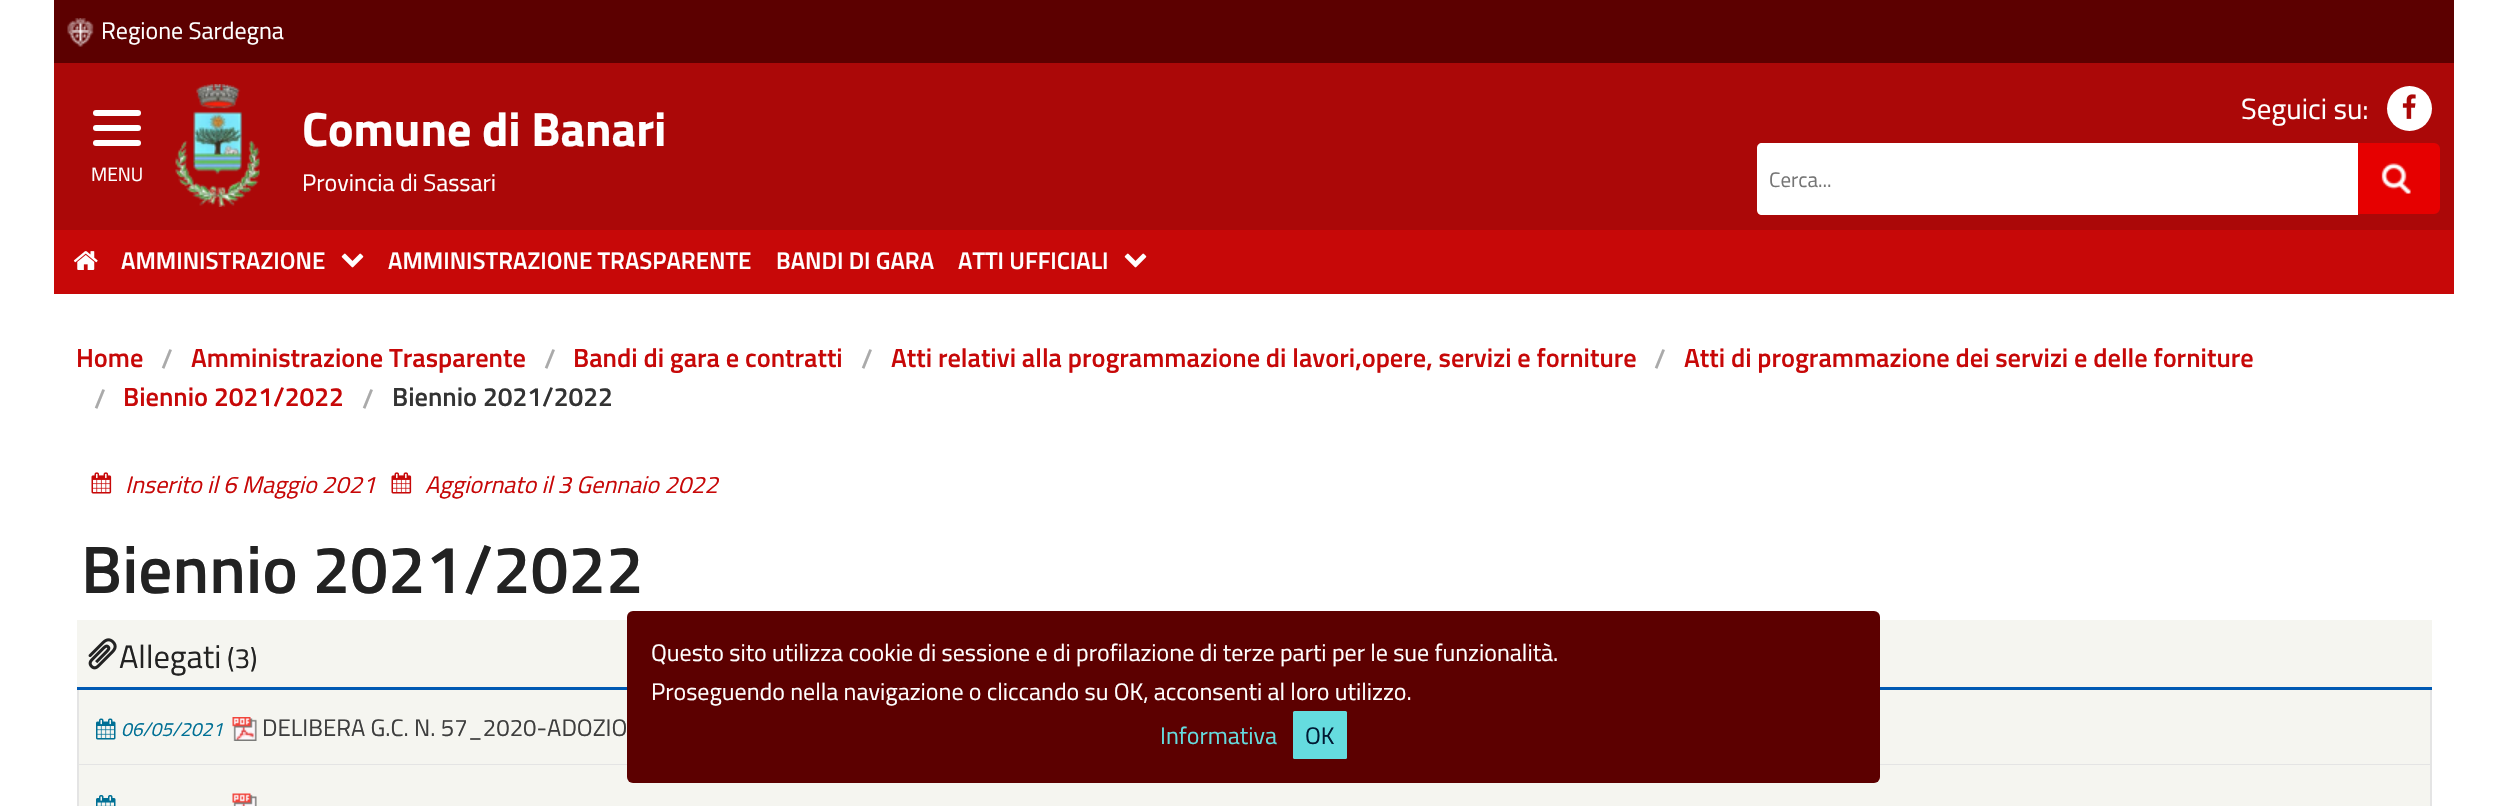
#include "include/core/SkBlurTypes.h"
#include "include/core/SkCanvas.h"
#include "include/core/SkData.h"
#include "include/core/SkFont.h"
#include "include/core/SkFontMgr.h"
#include "include/core/SkImage.h"
#include "include/core/SkMaskFilter.h"
#include "include/core/SkPaint.h"
#include "include/core/SkPathBuilder.h"
#include "include/core/SkTextBlob.h"
#include "include/effects/SkDashPathEffect.h"
#include "include/effects/SkGradientShader.h"
#include "include/utils/SkParsePath.h"

extern sk_sp<SkFontMgr> fontMgr;

void draw(SkCanvas* canvas) {
    SkPaint p;
    p.setAntiAlias(true);
    auto font = [&](const char* family, int weight, float size, bool italic = false) {
        SkFontStyle style(weight, SkFontStyle::kNormal_Width,
            italic ? SkFontStyle::kItalic_Slant : SkFontStyle::kUpright_Slant);
        SkFont result(fontMgr->matchFamilyStyle(family, style), size);
        result.setSubpixel(true);
        return result;
    };
    auto drawPhoto = [&](const char* path, float l, float t, float r, float b) {
        auto image = SkImages::DeferredFromEncodedData(SkData::MakeFromFileName(path));
        canvas->drawImageRect(image, SkRect::MakeLTRB(l, t, r, b), SkSamplingOptions());
    };
    canvas->clear(0xFFFFFFFF);
    p.setColor(0xFF5C0000);
    canvas->drawRect(SkRect::MakeLTRB(54, 0, 2454, 63), p);
    drawPhoto("media/1.png", 67, 18, 94, 47);
    auto font1 = font("Titillium Web", 400, 24);
    p.setColor(0xFFFFFFFF);
    canvas->drawString("Regione Sardegna", 101, 39, font1, p);
    p.setColor(0xFFAB0808);
    canvas->drawRect(SkRect::MakeLTRB(54, 63, 2454, 230), p);
    p.setColor(0xFFFFFFFF);
    canvas->drawRoundRect(SkRect::MakeLTRB(93, 110, 141, 116), 3, 3, p);
    canvas->drawRoundRect(SkRect::MakeLTRB(93, 125, 141, 131), 3, 3, p);
    canvas->drawRoundRect(SkRect::MakeLTRB(93, 140, 141, 146), 3, 3, p);
    auto font2 = font("Titillium Web", 400, 19.25f);
    canvas->drawString("MENU", 91, 181, font2, p);
    drawPhoto("media/2.png", 175, 84, 260, 207);
    auto font3 = font("Titillium Web", 700, 48);
    canvas->drawString("Comune di Banari", 302, 146, font3, p);
    canvas->drawString("Provincia di Sassari", 302, 191, font1, p);
    auto font4 = font("Titillium Web", 400, 29);
    canvas->drawString("Seguici su:", 2241, 119, font4, p);
    canvas->drawCircle(2409.5f, 108.5f, 22.5f, p);
    drawPhoto("media/3.png", 2402, 94, 2416, 119);
    p.setColor(0xFFE60000);
    canvas->drawRoundRect(SkRect::MakeLTRB(1756, 142, 2441, 215), 7, 7, p);
    p.setStyle(SkPaint::kStroke_Style);
    p.setStrokeWidth(2);
    p.setColor(0xFFAB0808);
    canvas->drawRoundRect(SkRect::MakeLTRB(1756, 142, 2441, 215), 7, 7, p);
    p.setStyle(SkPaint::kFill_Style);
    p.setColor(0xFFFFFFFF);
    canvas->drawPath(SkPathBuilder().moveTo(1762, 143).lineTo(2358, 143).lineTo(2358, 215).lineTo(1762, 215).cubicTo(1759, 215, 1757, 213, 1757, 210).lineTo(1757, 148).cubicTo(1757, 145, 1759, 143, 1762, 143).close().detach(), p);
    auto font5 = font("Titillium Web", 400, 21);
    p.setColor(0xFF757575);
    canvas->drawString("Cerca...", 1769, 187, font5, p);
    drawPhoto("media/4.png", 2381, 163, 2411, 194);
    p.setColor(0xFFC70808);
    canvas->drawRect(SkRect::MakeLTRB(54, 230, 2454, 294), p);
    drawPhoto("media/5.png", 73, 251, 98, 270);
    auto font6 = font("Titillium Web", 600, 24);
    p.setColor(0xFFFFFFFF);
    canvas->drawString("AMMINISTRAZIONE", 121, 269, font6, p);
    drawPhoto("media/6.png", 341, 253, 364, 268);
    {
        const struct { const char* s; float x, y; } items[] = {
            {"AMMINISTRAZIONE TRASPARENTE", 388, 269},
            {"BANDI DI GARA", 776, 269},
            {"ATTI UFFICIALI", 958, 269},
        };
        for (auto [s, x, y] : items) {
            canvas->drawString(s, x, y, font6, p);
        }
    }
    drawPhoto("media/6.png", 1124, 253, 1147, 268);
    auto font7 = font("Titillium Web", 600, 26.4f);
    p.setColor(0xFFC70808);
    canvas->drawString("Home", 76, 367, font7, p);
    p.setColor(0xFFAAAAAA);
    canvas->drawString("/", 161, 368, font7, p);
    p.setColor(0xFFC70808);
    canvas->drawString("Amministrazione Trasparente", 191, 367, font7, p);
    p.setColor(0xFFAAAAAA);
    canvas->drawString("/", 544, 368, font7, p);
    p.setColor(0xFFC70808);
    canvas->drawString("Bandi di gara e contratti", 573, 367, font7, p);
    p.setColor(0xFFAAAAAA);
    canvas->drawString("/", 861, 368, font7, p);
    p.setColor(0xFFC70808);
    canvas->drawString("Atti relativi alla programmazione di lavori,opere, servizi e forniture", 891, 367, font7, p);
    p.setColor(0xFFAAAAAA);
    canvas->drawString("/", 1654, 368, font7, p);
    p.setColor(0xFFC70808);
    canvas->drawString("Atti di programmazione dei servizi e delle forniture", 1684, 367, font7, p);
    p.setColor(0xFFAAAAAA);
    canvas->drawString("/", 94, 408, font7, p);
    p.setColor(0xFFC70808);
    canvas->drawString("Biennio 2021/2022", 123, 406, font7, p);
    p.setColor(0xFFAAAAAA);
    canvas->drawString("/", 362, 408, font7, p);
    p.setColor(0xFF333333);
    canvas->drawString("Biennio 2021/2022", 392, 406, font7, p);
    drawPhoto("media/7.png", 91, 472, 112, 494);
    auto font8 = font("Titillium Web", 400, 24, true);
    p.setColor(0xFFC70808);
    canvas->drawString("Inserito il 6 Maggio 2021", 125, 493, font8, p);
    drawPhoto("media/7.png", 391, 472, 412, 494);
    canvas->drawString("Aggiornato il 3 Gennaio 2022", 425, 493, font8, p);
    auto font9 = font("Titillium Web", 600, 67.25f);
    p.setColor(0xFF222222);
    canvas->drawString("Biennio 2021/2022", 81, 593, font9, p);
    p.setColor(0xFFF5F5F0);
    canvas->drawRect(SkRect::MakeLTRB(77, 620, 2432, 687), p);
    p.setColor(0xFF0059B3);
    canvas->drawRect(SkRect::MakeLTRB(77, 687, 2432, 690), p);
    drawPhoto("media/8.png", 88, 638, 117, 670);
    auto font10 = font("Titillium Web", 400, 32.5f);
    p.setColor(0xFF222222);
    canvas->drawString("Allegati", 119, 668, font10, p);
    auto font11 = font("Titillium Web", 400, 28);
    canvas->drawString("(3)", 227, 668, font11, p);
    {
        const struct { float l, t, r, b; SkColor color; } items[] = {
            {79, 690, 2430, 764, 0xFFF5F5F0},
            {2430, 690, 2432, 806, 0xFFE4E4E4},
            {77, 764, 2432, 765, 0xFFE4E4E4},
            {77, 690, 79, 806, 0xFFE4E4E4},
        };
        for (auto [l, t, r, b, color] : items) {
            p.setColor(color);
            canvas->drawRect(SkRect::MakeLTRB(l, t, r, b), p);
        }
    }
    drawPhoto("media/9.png", 96, 718, 116, 740);
    auto font12 = font("Titillium Web", 400, 19.25f, true);
    p.setColor(0xFF007095);
    canvas->drawString("06/05/2021", 121, 736, font12, p);
    drawPhoto("media/10.png", 232, 717, 257, 741);
    p.setColor(0xFF3E3E3E);
    canvas->drawString("DELIBERA G.C. N. 57_2020-ADOZIO", 262, 736, font1, p);
    p.setColor(0xFFF5F5F0);
    canvas->drawRect(SkRect::MakeLTRB(79, 765, 2430, 806), p);
    drawPhoto("media/11.png", 96, 795, 116, 806);
    drawPhoto("media/12.png", 232, 793, 257, 806);
    p.setColor(0xFF5C0000);
    canvas->drawRoundRect(SkRect::MakeLTRB(627, 611, 1880, 783), 6, 6, p);
    p.setColor(0xFFFFFFFF);
    canvas->drawString("Questo sito utilizza cookie di sessione e di profilazione di terze parti per le sue funzionalità.", 651, 661, font1, p);
    canvas->drawString("Proseguendo nella navigazione o cliccando su OK, acconsenti al loro utilizzo.", 651, 700, font1, p);
    p.setColor(0xFF65DCDF);
    canvas->drawString("Informativa", 1160, 744, font1, p);
    canvas->drawRoundRect(SkRect::MakeLTRB(1293, 711, 1347, 759), 1.5f, 1.5f, p);
    p.setColor(0xFF001933);
    canvas->drawString("OK", 1305, 744, font1, p);
}
